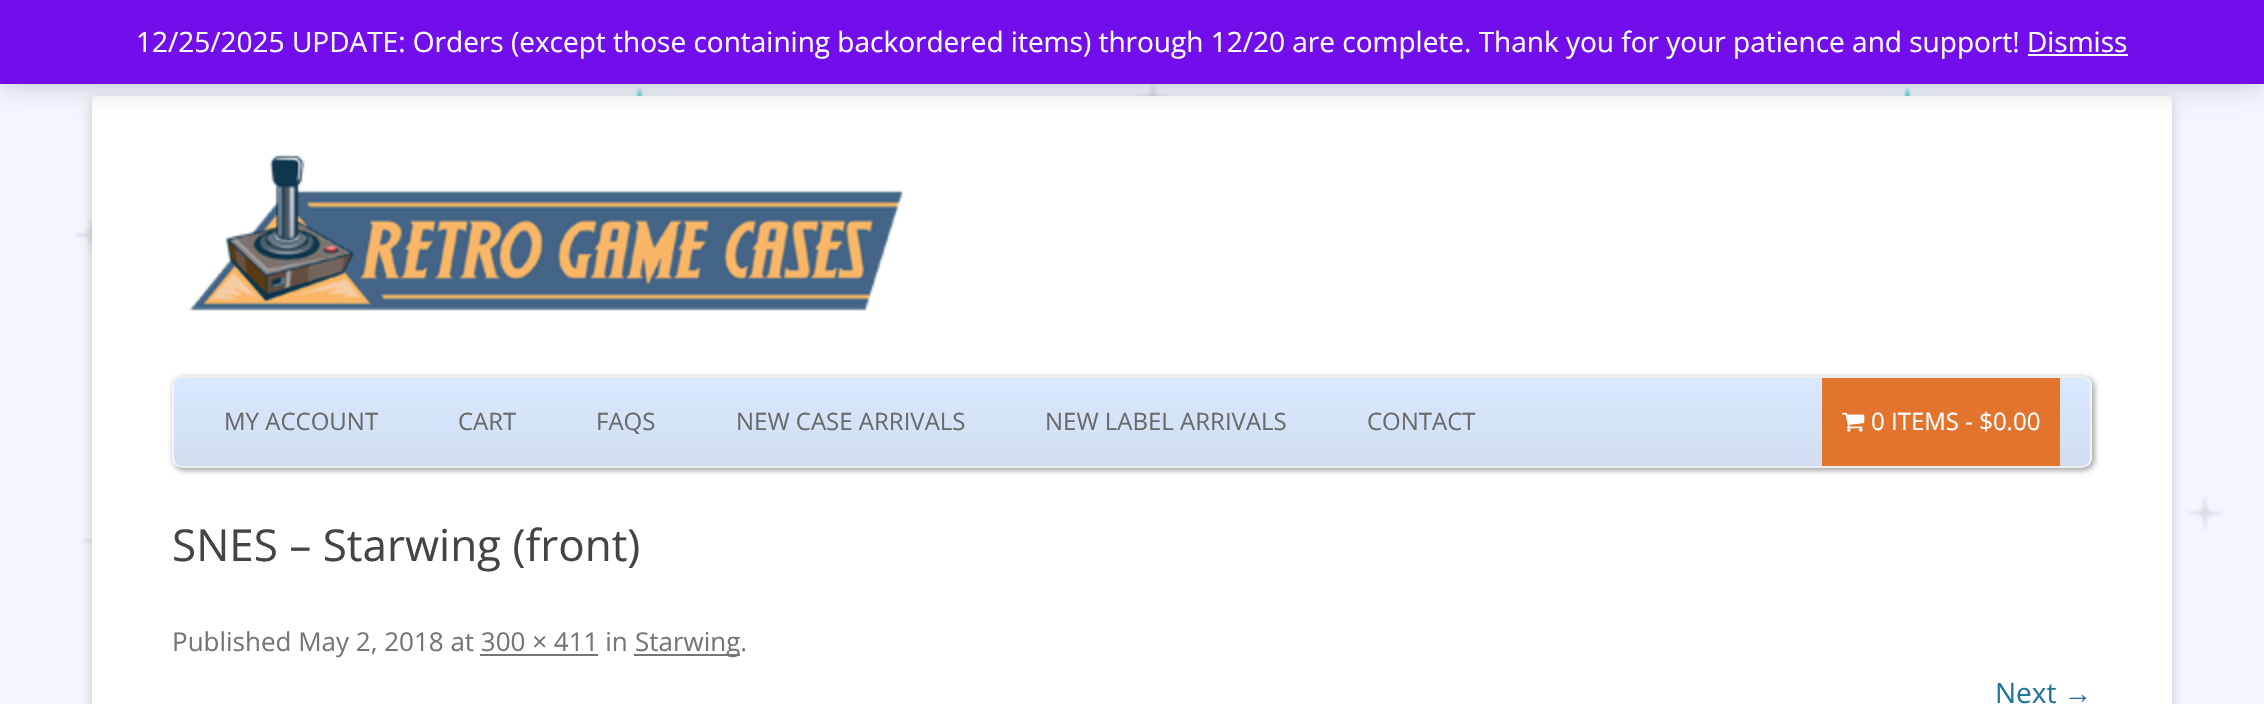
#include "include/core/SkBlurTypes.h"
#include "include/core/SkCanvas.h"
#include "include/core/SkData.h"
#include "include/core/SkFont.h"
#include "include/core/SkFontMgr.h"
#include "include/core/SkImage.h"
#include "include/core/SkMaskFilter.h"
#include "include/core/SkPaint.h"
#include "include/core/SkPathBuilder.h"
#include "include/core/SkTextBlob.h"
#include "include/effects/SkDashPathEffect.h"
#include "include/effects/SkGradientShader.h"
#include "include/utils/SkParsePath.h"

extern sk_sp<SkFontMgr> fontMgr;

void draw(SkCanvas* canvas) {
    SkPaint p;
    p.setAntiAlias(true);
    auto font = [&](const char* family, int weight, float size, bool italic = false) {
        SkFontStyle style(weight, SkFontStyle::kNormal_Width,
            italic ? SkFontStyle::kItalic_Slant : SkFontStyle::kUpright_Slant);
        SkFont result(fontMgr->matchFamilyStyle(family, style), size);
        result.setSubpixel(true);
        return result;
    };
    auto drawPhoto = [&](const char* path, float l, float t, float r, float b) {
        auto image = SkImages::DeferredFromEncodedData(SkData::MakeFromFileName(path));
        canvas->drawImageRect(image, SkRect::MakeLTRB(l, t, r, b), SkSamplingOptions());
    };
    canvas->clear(0xFFF3F8FF);
    drawPhoto("media/1.png", 73, 84, 2242, 704);
    p.setColor(0x4D646464);
    p.setMaskFilter(SkMaskFilter::MakeBlur(kNormal_SkBlurStyle, 6));
    canvas->drawRect(SkRect::MakeLTRB(92, 100, 2172, 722), p);
    p.setMaskFilter(nullptr);
    p.setColor(0xFFFFFFFF);
    canvas->drawRect(SkRect::MakeLTRB(92, 96, 2172, 704), p);
    p.setColor(0x33000000);
    p.setMaskFilter(SkMaskFilter::MakeBlur(kNormal_SkBlurStyle, 14));
    canvas->drawRect(SkRect::MakeLTRB(0, 2, 2264, 86), p);
    p.setMaskFilter(nullptr);
    p.setColor(0xFF720EEC);
    canvas->drawRect(SkRect::MakeLTRB(0, 0, 2264, 84), p);
    auto font1 = font("Open Sans", 400, 28);
    p.setColor(0xFFFFFFFF);
    canvas->drawString("12/25/2025 UPDATE: Orders (except those containing backordered items) through 12/20 are complete. Thank you for your patience and support! Dismiss", 136, 52, font1, p);
    p.setColor(0xFFFCFBFE);
    canvas->drawRect(SkRect::MakeLTRB(2028, 54, 2128, 56), p);
    drawPhoto("media/2.png", 189, 155, 903, 311);
    p.setColor(0xFF969696);
    p.setMaskFilter(SkMaskFilter::MakeBlur(kNormal_SkBlurStyle, 3));
    canvas->drawRoundRect(SkRect::MakeLTRB(174, 378, 2094, 470), 10, 10, p);
    p.setMaskFilter(nullptr);
    canvas->save();
    canvas->clipPath(SkPathBuilder().moveTo(182, 376).lineTo(2082, 376).cubicTo(2087.5f, 376, 2092, 380.5f, 2092, 386).lineTo(2092, 458).cubicTo(2092, 463.5f, 2087.5f, 468, 2082, 468).lineTo(182, 468).cubicTo(176.5f, 468, 172, 463.5f, 172, 458).lineTo(172, 386).cubicTo(172, 380.5f, 176.5f, 376, 182, 376).close().detach(), true);
    {
        const SkColor colors[] = {0xFFD8E8FF, 0xFFD1DEF0};
        const float stops[] = {0.01f, 0.98f};
        const SkPoint ends[] = {{1132, 378}, {1132, 466}};
        p.setShader(SkGradientShader::MakeLinear(ends, colors, stops, 2, SkTileMode::kClamp));
        p.setAlpha(255);
    }
    canvas->drawRect(SkRect::MakeLTRB(172, 378, 2092, 466), p);
    canvas->restore();
    p.setStyle(SkPaint::kStroke_Style);
    p.setStrokeWidth(2);
    p.setShader(nullptr);
    p.setColor(0xFFEDEDED);
    canvas->drawPath(SkPathBuilder().moveTo(175.5f, 379.5f).cubicTo(177.5f, 378, 179.5f, 377, 182, 377).lineTo(2082, 377).cubicTo(2084.5f, 377, 2086.5f, 378, 2088.5f, 379.5f).detach(), p);
    p.setColor(0xFFF2F7FF);
    canvas->drawPath(SkPathBuilder().moveTo(2088.5f, 379.5f).cubicTo(2090, 381.5f, 2091, 383.5f, 2091, 386).lineTo(2091, 458).cubicTo(2091, 460.5f, 2090, 462.5f, 2088.5f, 464.5f).detach(), p);
    p.setColor(0xFFEDEDED);
    canvas->drawPath(SkPathBuilder().moveTo(2088.5f, 464.5f).cubicTo(2086.5f, 466, 2084.5f, 467, 2082, 467).lineTo(182, 467).cubicTo(179.5f, 467, 177.5f, 466, 175.5f, 464.5f).detach(), p);
    p.setColor(0xFFF2F7FF);
    canvas->drawPath(SkPathBuilder().moveTo(175.5f, 464.5f).cubicTo(174, 462.5f, 173, 460.5f, 173, 458).lineTo(173, 386).cubicTo(173, 383.5f, 174, 381.5f, 175.5f, 379.5f).detach(), p);
    auto font2 = font("Open Sans", 400, 24);
    p.setStyle(SkPaint::kFill_Style);
    p.setColor(0xFF6A6A6A);
    {
        const struct { const char* s; float x, y; } items[] = {
            {"MY ACCOUNT", 224, 430},
            {"CART", 458, 430},
            {"FAQS", 596, 430},
            {"NEW CASE ARRIVALS", 736, 430},
            {"NEW LABEL ARRIVALS", 1045, 430},
            {"CONTACT", 1367, 430},
        };
        for (auto [s, x, y] : items) {
            canvas->drawString(s, x, y, font2, p);
        }
    }
    p.setColor(0xFFE2742E);
    canvas->drawRect(SkRect::MakeLTRB(1822, 378, 2060, 466), p);
    drawPhoto("media/3.png", 1842, 412, 1865, 432);
    p.setColor(0xFFFFFFFF);
    canvas->drawString("0 ITEMS - $0.00", 1871, 430, font2, p);
    auto font3 = font("Open Sans", 400, 44);
    p.setColor(0xFF444444);
    canvas->drawString("SNES – Starwing (front)", 172, 561, font3, p);
    auto font4 = font("Open Sans", 400, 26);
    p.setColor(0xFF757575);
    canvas->drawString("Published May 2, 2018 at 300 × 411 in", 172, 651, font4, p);
    canvas->drawRect(SkRect::MakeLTRB(634, 654, 740, 656), p);
    canvas->drawString("Starwing.", 635, 651, font4, p);
    canvas->drawRect(SkRect::MakeLTRB(480, 654, 598, 656), p);
    p.setColor(0xFF21759B);
    canvas->drawString("Next", 1995, 703, font1, p);
    auto font5 = font("Liberation Sans", 400, 28);
    canvas->drawString("→", 2064, 703, font5, p);
}
